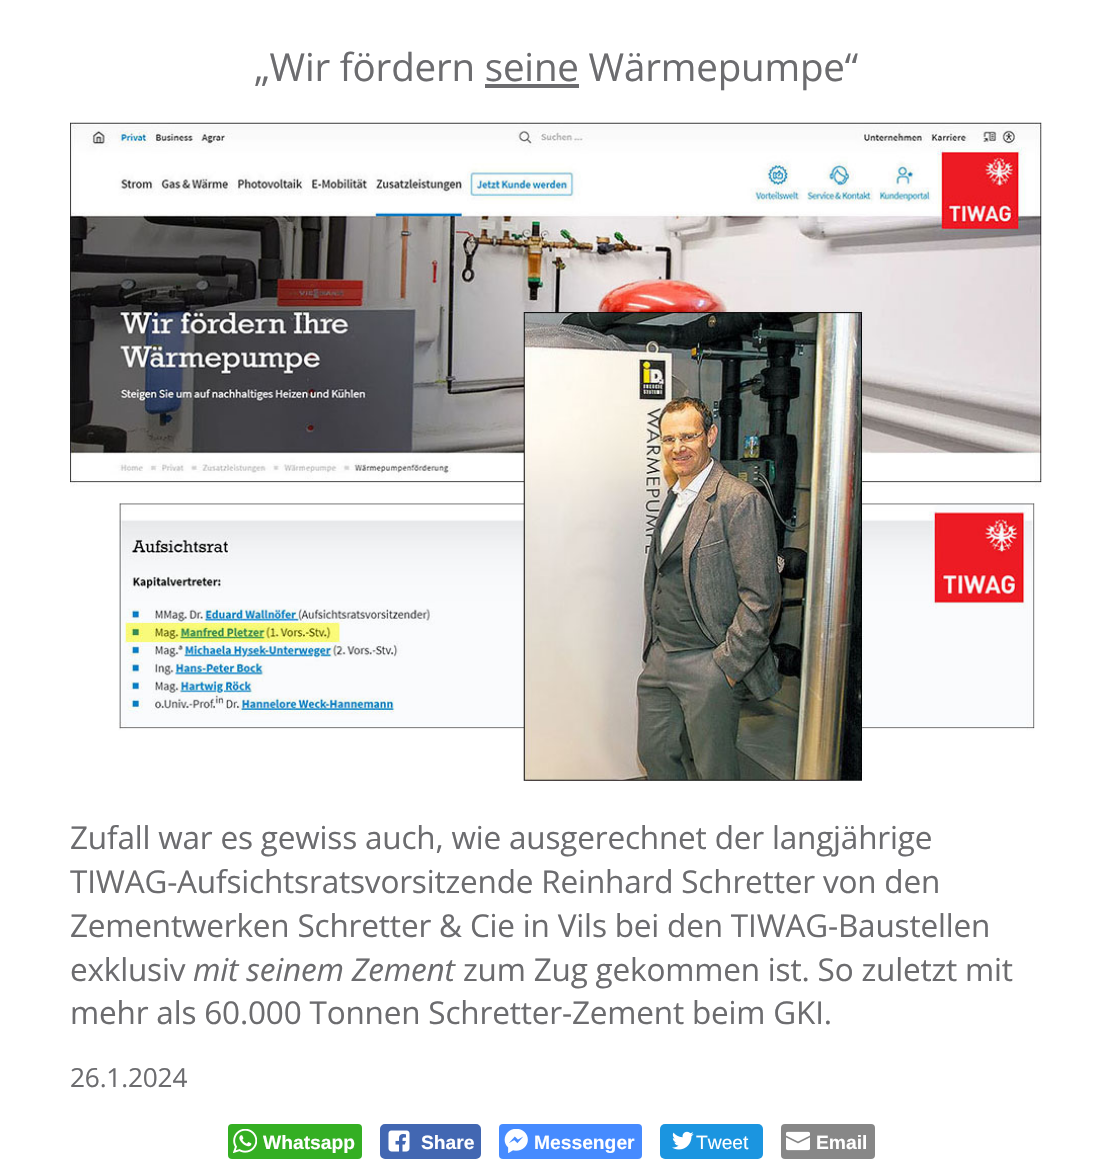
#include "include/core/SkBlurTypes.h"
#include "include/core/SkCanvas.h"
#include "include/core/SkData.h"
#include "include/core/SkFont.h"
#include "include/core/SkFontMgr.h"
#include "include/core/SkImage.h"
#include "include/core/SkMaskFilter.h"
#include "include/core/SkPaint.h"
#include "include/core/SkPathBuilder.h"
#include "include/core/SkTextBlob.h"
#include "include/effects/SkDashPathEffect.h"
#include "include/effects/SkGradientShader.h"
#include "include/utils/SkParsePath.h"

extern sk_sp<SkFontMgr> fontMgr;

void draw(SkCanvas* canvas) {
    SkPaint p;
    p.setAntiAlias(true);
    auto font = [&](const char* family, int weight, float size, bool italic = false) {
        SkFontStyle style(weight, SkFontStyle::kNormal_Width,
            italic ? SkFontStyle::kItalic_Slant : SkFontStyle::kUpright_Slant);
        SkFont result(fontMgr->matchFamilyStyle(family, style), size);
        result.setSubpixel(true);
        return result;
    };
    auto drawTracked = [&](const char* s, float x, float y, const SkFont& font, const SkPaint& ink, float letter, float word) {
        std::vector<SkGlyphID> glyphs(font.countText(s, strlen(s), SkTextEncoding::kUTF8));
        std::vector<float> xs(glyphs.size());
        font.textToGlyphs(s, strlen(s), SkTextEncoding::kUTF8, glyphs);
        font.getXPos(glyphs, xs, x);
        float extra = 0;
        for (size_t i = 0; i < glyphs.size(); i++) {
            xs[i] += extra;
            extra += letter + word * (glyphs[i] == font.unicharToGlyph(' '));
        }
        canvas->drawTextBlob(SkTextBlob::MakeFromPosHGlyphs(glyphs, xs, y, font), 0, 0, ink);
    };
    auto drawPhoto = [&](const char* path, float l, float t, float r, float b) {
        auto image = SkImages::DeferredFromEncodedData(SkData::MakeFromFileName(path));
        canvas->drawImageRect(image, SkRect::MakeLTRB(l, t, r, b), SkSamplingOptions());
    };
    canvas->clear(0xFFFFFFFF);
    auto font1 = font("Open Sans", 400, 38.5f);
    p.setColor(0xFF6C6C6F);
    drawTracked("„Wir fördern seine Wärmepumpe“", 254, 81, font1, p, -0.18f, 0);
    canvas->drawRect(SkRect::MakeLTRB(485, 84, 579, 88), p);
    drawPhoto("media/1.png", 70, 122, 1042, 781);
    auto font2 = font("Open Sans", 400, 31.5f);
    {
        const struct { const char* s; float x, y; } items[] = {
            {"Zufall war es gewiss auch, wie ausgerechnet der langjährige", 70, 849},
            {"TIWAG-Aufsichtsratsvorsitzende Reinhard Schretter von den", 70, 893},
            {"Zementwerken Schretter & Cie in Vils bei den TIWAG-Baustellen", 70, 937},
            {"exklusiv", 70, 981},
        };
        for (auto [s, x, y] : items) {
            drawTracked(s, x, y, font2, p, -0.18f, 0);
        }
    }
    auto font3 = font("Open Sans", 400, 31.5f, true);
    drawTracked("mit seinem Zement", 193, 981, font3, p, -0.18f, 0);
    drawTracked("zum Zug gekommen ist. So zuletzt mit", 463, 981, font2, p, -0.18f, 0);
    drawTracked("mehr als 60.000 Tonnen Schretter-Zement beim GKI.", 70, 1024, font2, p, -0.18f, 0);
    auto font4 = font("Open Sans", 400, 26.25f);
    drawTracked("26.1.2024", 70, 1087, font4, p, -0.18f, 0);
    p.setColor(0xFF34AF23);
    canvas->drawRoundRect(SkRect::MakeLTRB(228, 1124, 362, 1159), 4, 4, p);
    drawPhoto("media/2.png", 233, 1129, 257, 1153);
    auto font5 = font("Liberation Sans", 700, 19.25f);
    p.setColor(0xFFFFFFFF);
    canvas->drawString("Whatsapp", 263, 1149, font5, p);
    p.setColor(0xFF4267B2);
    canvas->drawRoundRect(SkRect::MakeLTRB(381, 1125, 480, 1158), 4, 4, p);
    p.setStyle(SkPaint::kStroke_Style);
    p.setStrokeWidth(2);
    canvas->drawRoundRect(SkRect::MakeLTRB(381, 1125, 480, 1158), 4, 4, p);
    drawPhoto("media/3.png", 388, 1130, 410, 1152);
    p.setStyle(SkPaint::kFill_Style);
    p.setColor(0xFFFFFFFF);
    canvas->drawString("Share", 421, 1149, font5, p);
    p.setColor(0xFF468BFF);
    canvas->drawRoundRect(SkRect::MakeLTRB(499, 1124, 642, 1159), 4, 4, p);
    drawPhoto("media/4.png", 504, 1129, 528, 1153);
    p.setColor(0xFFFFFFFF);
    canvas->drawString("Messenger", 534, 1149, font5, p);
    p.setColor(0xFF1B95E0);
    canvas->drawRoundRect(SkRect::MakeLTRB(660, 1124, 763, 1159), 5, 5, p);
    drawPhoto("media/5.png", 672, 1131, 694, 1150);
    auto font6 = font("Liberation Sans", 400, 19.25f);
    p.setColor(0xFFFFFFFF);
    canvas->drawString("Tweet", 696, 1149, font6, p);
    p.setColor(0xFF878787);
    canvas->drawRoundRect(SkRect::MakeLTRB(781, 1124, 875, 1159), 4, 4, p);
    drawPhoto("media/6.png", 786, 1131, 810, 1151);
    p.setColor(0xFFFFFFFF);
    canvas->drawString("Email", 816, 1149, font5, p);
}
